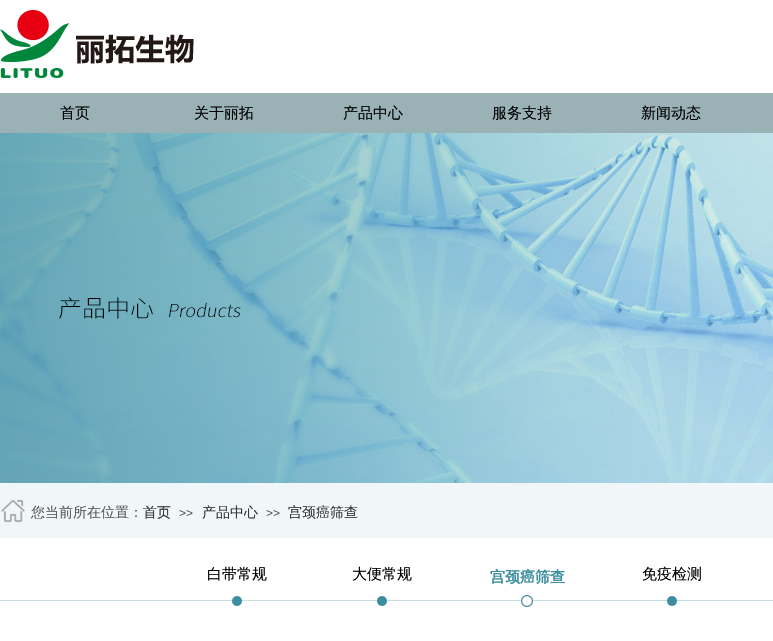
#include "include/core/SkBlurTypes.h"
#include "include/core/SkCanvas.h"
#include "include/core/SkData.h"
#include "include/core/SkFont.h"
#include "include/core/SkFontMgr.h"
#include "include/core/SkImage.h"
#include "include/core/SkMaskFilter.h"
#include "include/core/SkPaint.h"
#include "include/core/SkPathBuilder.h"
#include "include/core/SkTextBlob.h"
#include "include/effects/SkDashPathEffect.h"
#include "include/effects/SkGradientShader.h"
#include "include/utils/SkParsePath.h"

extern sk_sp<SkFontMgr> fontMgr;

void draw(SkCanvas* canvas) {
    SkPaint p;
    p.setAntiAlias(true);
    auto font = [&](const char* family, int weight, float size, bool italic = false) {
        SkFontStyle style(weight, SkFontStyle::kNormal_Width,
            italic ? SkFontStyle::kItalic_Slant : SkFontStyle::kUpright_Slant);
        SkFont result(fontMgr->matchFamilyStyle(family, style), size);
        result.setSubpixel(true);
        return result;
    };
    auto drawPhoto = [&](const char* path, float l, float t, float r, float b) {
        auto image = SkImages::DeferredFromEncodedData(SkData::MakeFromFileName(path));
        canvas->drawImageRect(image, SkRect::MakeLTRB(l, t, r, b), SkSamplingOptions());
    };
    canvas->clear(0xFFFFFFFF);
    drawPhoto("media/1.png", 0, 10, 194, 78);
    p.setColor(0xFF9AB1B6);
    canvas->drawRect(SkRect::MakeLTRB(0, 93, 773, 133), p);
    auto font1 = font("WenQuanYi Zen Hei", 500, 15);
    p.setColor(0xFF000000);
    {
        const struct { const char* s; float x, y; } items[] = {
            {"首页", 60, 118},
            {"关于丽拓", 194, 118},
            {"产品中心", 343, 118},
            {"服务支持", 492, 118},
            {"新闻动态", 641, 118},
        };
        for (auto [s, x, y] : items) {
            canvas->drawString(s, x, y, font1, p);
        }
    }
    drawPhoto("media/2.png", 0, 133, 773, 483);
    p.setColor(0xFFF1F7F8);
    canvas->drawRect(SkRect::MakeLTRB(0, 483, 773, 538), p);
    auto font2 = font("WenQuanYi Zen Hei", 500, 14);
    p.setColor(0xFF5A5A5A);
    canvas->drawString("您当前所在位置：", 31, 517, font2, p);
    drawPhoto("media/3.png", 1, 499, 25, 523);
    p.setColor(0xFF333333);
    canvas->drawString("首页", 143, 517, font2, p);
    auto font3 = font("Liberation Sans", 400, 12);
    p.setColor(0xFF5A5A5A);
    canvas->drawString(">>", 179, 517, font3, p);
    p.setColor(0xFF333333);
    canvas->drawString("产品中心", 202, 517, font2, p);
    p.setColor(0xFF5A5A5A);
    canvas->drawString(">>", 266, 517, font3, p);
    p.setColor(0xFF333333);
    canvas->drawString("宫颈癌筛查", 288, 517, font2, p);
    p.setColor(0xFFC4DEE4);
    canvas->drawRect(SkRect::MakeLTRB(0, 600, 773, 601), p);
    drawPhoto("media/4.png", 232, 596, 242, 606);
    p.setColor(0xFF000000);
    canvas->drawString("白带常规", 207, 579, font1, p);
    drawPhoto("media/4.png", 377, 596, 387, 606);
    canvas->drawString("大便常规", 352, 579, font1, p);
    drawPhoto("media/5.png", 521, 595, 533, 607);
    auto font4 = font("WenQuanYi Zen Hei", 700, 15);
    p.setColor(0xFF3C8D9F);
    canvas->drawString("宫颈癌筛查", 490, 582, font4, p);
    drawPhoto("media/4.png", 667, 596, 677, 606);
    p.setColor(0xFF000000);
    canvas->drawString("免疫检测", 642, 579, font1, p);
}
